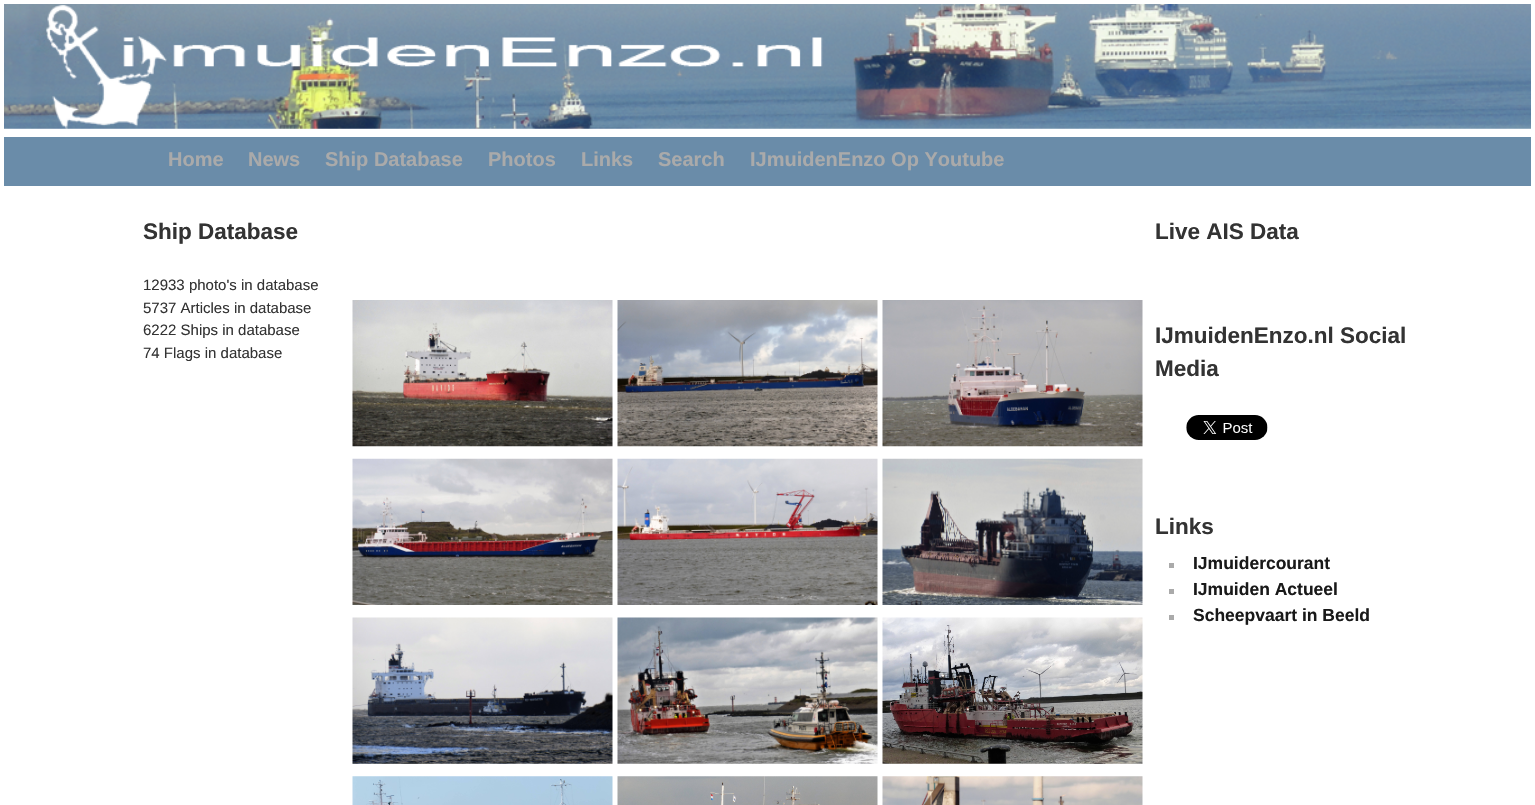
#include "include/core/SkBlurTypes.h"
#include "include/core/SkCanvas.h"
#include "include/core/SkData.h"
#include "include/core/SkFont.h"
#include "include/core/SkFontMgr.h"
#include "include/core/SkImage.h"
#include "include/core/SkMaskFilter.h"
#include "include/core/SkPaint.h"
#include "include/core/SkPathBuilder.h"
#include "include/core/SkTextBlob.h"
#include "include/effects/SkDashPathEffect.h"
#include "include/effects/SkGradientShader.h"
#include "include/utils/SkParsePath.h"

extern sk_sp<SkFontMgr> fontMgr;

void draw(SkCanvas* canvas) {
    SkPaint p;
    p.setAntiAlias(true);
    auto font = [&](const char* family, int weight, float size, bool italic = false) {
        SkFontStyle style(weight, SkFontStyle::kNormal_Width,
            italic ? SkFontStyle::kItalic_Slant : SkFontStyle::kUpright_Slant);
        SkFont result(fontMgr->matchFamilyStyle(family, style), size);
        result.setSubpixel(true);
        return result;
    };
    auto drawPhoto = [&](const char* path, float l, float t, float r, float b) {
        auto image = SkImages::DeferredFromEncodedData(SkData::MakeFromFileName(path));
        canvas->drawImageRect(image, SkRect::MakeLTRB(l, t, r, b), SkSamplingOptions());
    };
    canvas->clear(0xFFFFFFFF);
    drawPhoto("media/1.png", 4, 4, 1531, 129);
    p.setColor(0xFF6A8CA9);
    canvas->drawRect(SkRect::MakeLTRB(4, 137, 1531, 186), p);
    auto font1 = font("Liberation Sans", 700, 20);
    p.setColor(0xFFAAAAAA);
    {
        const struct { const char* s; float x, y; } items[] = {
            {"Home", 168, 166},
            {"News", 248, 166},
            {"Ship Database", 325, 166},
            {"Photos", 488, 166},
            {"Links", 581, 166},
            {"Search", 658, 166},
            {"IJmuidenEnzo Op Youtube", 750, 166},
        };
        for (auto [s, x, y] : items) {
            canvas->drawString(s, x, y, font1, p);
        }
    }
    auto font2 = font("Liberation Sans", 700, 22.5f);
    p.setColor(0xFF333333);
    canvas->drawString("Ship Database", 143, 239, font2, p);
    auto font3 = font("Liberation Sans", 400, 15);
    {
        const struct { const char* s; float x, y; } items[] = {
            {"12933 photo's in database", 143, 290},
            {"5737 Articles in database", 143, 313},
            {"6222 Ships in database", 143, 335},
            {"74 Flags in database", 143, 358},
        };
        for (auto [s, x, y] : items) {
            canvas->drawString(s, x, y, font3, p);
        }
    }
    drawPhoto("media/2.png", 352, 300, 613, 447);
    drawPhoto("media/3.png", 617, 300, 878, 447);
    drawPhoto("media/4.png", 882, 300, 1143, 447);
    drawPhoto("media/5.png", 352, 458, 613, 605);
    drawPhoto("media/6.png", 617, 458, 878, 605);
    drawPhoto("media/7.png", 882, 458, 1143, 605);
    drawPhoto("media/8.png", 352, 617, 613, 764);
    drawPhoto("media/9.png", 617, 617, 878, 764);
    drawPhoto("media/10.png", 882, 617, 1143, 764);
    drawPhoto("media/11.png", 352, 776, 613, 805);
    drawPhoto("media/12.png", 617, 776, 878, 805);
    drawPhoto("media/13.png", 882, 776, 1143, 805);
    {
        const struct { const char* s; float x, y; } items[] = {
            {"Live AIS Data", 1155, 239},
            {"IJmuidenEnzo.nl Social", 1155, 343},
            {"Media", 1155, 376},
        };
        for (auto [s, x, y] : items) {
            canvas->drawString(s, x, y, font2, p);
        }
    }
    drawPhoto("media/14.png", 1186, 415, 1268, 440);
    canvas->drawString("Links", 1155, 534, font2, p);
    p.setColor(0xFFAAAAAA);
    canvas->drawRect(SkRect::MakeLTRB(1169, 563, 1174, 568), p);
    auto font4 = font("Liberation Sans", 700, 17.5f);
    p.setColor(0xFF191919);
    canvas->drawString("IJmuidercourant", 1193, 569, font4, p);
    p.setColor(0xFFAAAAAA);
    canvas->drawRect(SkRect::MakeLTRB(1169, 589, 1174, 594), p);
    p.setColor(0xFF191919);
    canvas->drawString("IJmuiden Actueel", 1193, 595, font4, p);
    p.setColor(0xFFAAAAAA);
    canvas->drawRect(SkRect::MakeLTRB(1169, 615, 1174, 620), p);
    p.setColor(0xFF191919);
    canvas->drawString("Scheepvaart in Beeld", 1193, 621, font4, p);
}
